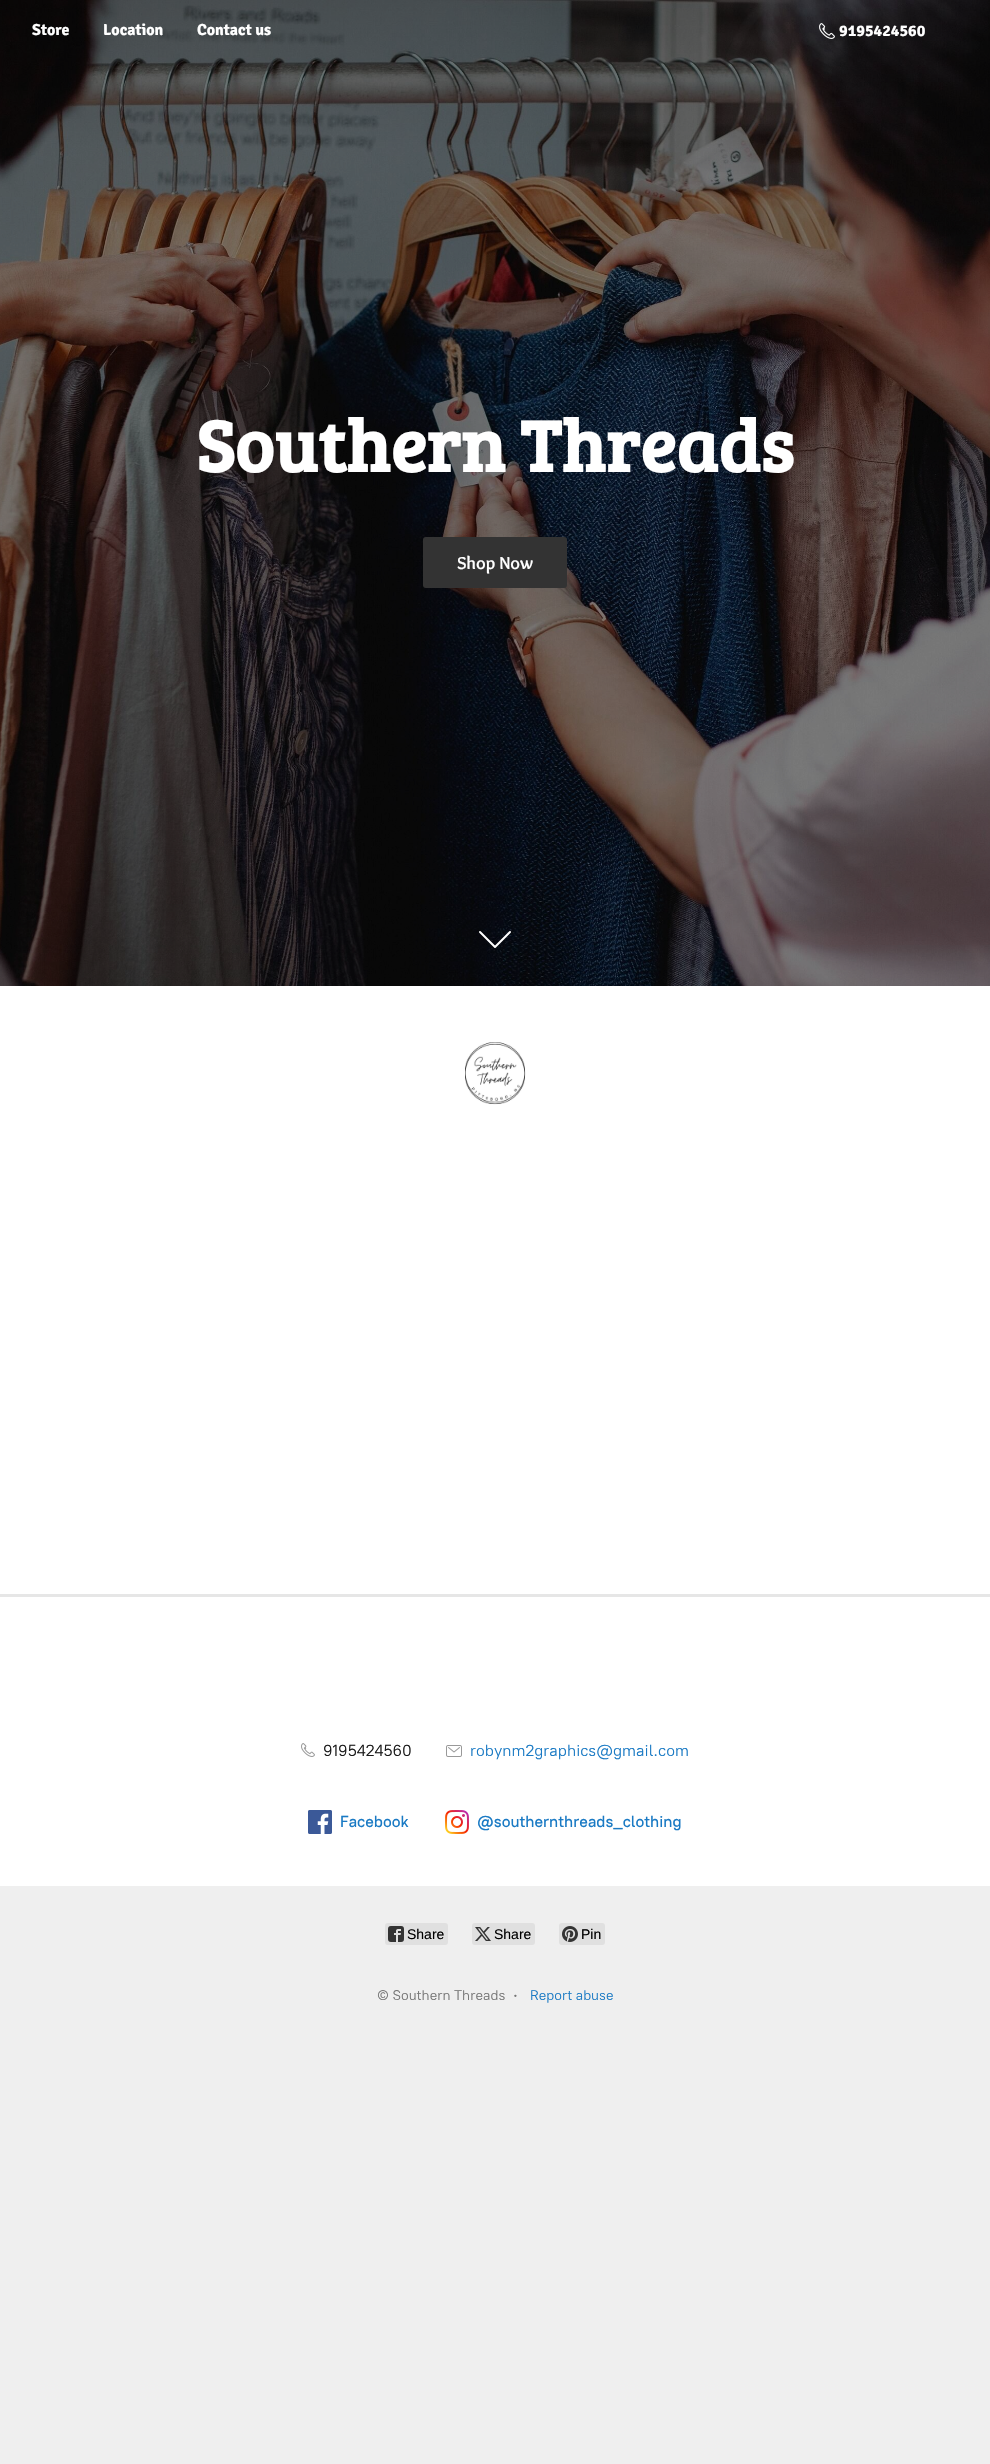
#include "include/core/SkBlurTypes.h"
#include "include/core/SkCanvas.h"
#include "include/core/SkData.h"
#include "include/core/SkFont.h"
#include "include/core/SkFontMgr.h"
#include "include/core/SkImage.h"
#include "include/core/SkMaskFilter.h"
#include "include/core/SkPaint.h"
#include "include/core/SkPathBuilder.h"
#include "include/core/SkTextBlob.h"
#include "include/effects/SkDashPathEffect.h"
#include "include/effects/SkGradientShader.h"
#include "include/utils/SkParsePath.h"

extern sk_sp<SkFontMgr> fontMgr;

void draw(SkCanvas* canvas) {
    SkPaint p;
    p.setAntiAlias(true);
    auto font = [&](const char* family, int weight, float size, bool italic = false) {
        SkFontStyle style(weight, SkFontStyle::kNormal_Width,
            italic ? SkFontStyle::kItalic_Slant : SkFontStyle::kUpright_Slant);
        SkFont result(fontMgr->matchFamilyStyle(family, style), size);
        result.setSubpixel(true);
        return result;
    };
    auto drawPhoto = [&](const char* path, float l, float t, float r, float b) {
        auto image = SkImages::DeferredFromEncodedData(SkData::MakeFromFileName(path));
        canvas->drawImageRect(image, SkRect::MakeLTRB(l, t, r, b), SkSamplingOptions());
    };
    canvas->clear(0xFFEFEFEF);
    p.setColor(0xFFFFFFFF);
    canvas->drawRect(SkRect::MakeLTRB(0, 986, 990, 1886), p);
    drawPhoto("media/1.png", 0, 0, 990, 986);
    auto font1 = font("Signika", 700, 16);
    {
        const struct { const char* s; float x, y; } items[] = {
            {"Store", 32, 35},
            {"Location", 103, 35},
            {"Contact us", 197, 35},
        };
        for (auto [s, x, y] : items) {
            canvas->drawString(s, x, y, font1, p);
        }
    }
    drawPhoto("media/2.png", 819, 23, 835, 39);
    canvas->drawString("9195424560", 839, 36, font1, p);
    auto font2 = font("Bree Serif", 700, 74.25f);
    canvas->drawString("Southern Threads", 196, 472, font2, p);
    p.setColor(0xFF333333);
    canvas->drawRoundRect(SkRect::MakeLTRB(423, 537, 567, 588), 3, 3, p);
    auto font3 = font("Overlock", 700, 18);
    p.setColor(0xFFFFFFFF);
    canvas->drawString("Shop Now", 457, 569, font3, p);
    p.setStyle(SkPaint::kStroke_Style);
    p.setStrokeWidth(2);
    p.setStrokeCap(SkPaint::kRound_Cap);
    p.setStrokeJoin(SkPaint::kRound_Join);
    canvas->drawPath(SkPathBuilder().moveTo(510, 932).lineTo(495, 947).lineTo(480, 932).detach(), p);
    drawPhoto("media/3.png", 465, 1042, 526, 1105);
    p.setStyle(SkPaint::kFill_Style);
    p.setColor(0xFFE6E6E6);
    canvas->drawRect(SkRect::MakeLTRB(0, 1594, 990, 1597), p);
    drawPhoto("media/4.png", 301, 1743, 315, 1757);
    auto font4 = font("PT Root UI", 400, 16);
    p.setColor(0xFF191919);
    canvas->drawString("9195424560", 323, 1756, font4, p);
    drawPhoto("media/5.png", 446, 1745, 462, 1757);
    p.setColor(0xFF1A7AC4);
    canvas->drawString("robynm2graphics@gmail.com", 470, 1756, font4, p);
    drawPhoto("media/6.png", 308, 1810, 332, 1834);
    auto font5 = font("PT Root UI", 500, 16);
    canvas->drawString("Facebook", 340, 1827, font5, p);
    drawPhoto("media/7.png", 445, 1810, 469, 1834);
    canvas->drawString("@southernthreads_clothing", 477, 1827, font5, p);
    p.setColor(0xFFE0E0E0);
    canvas->drawRoundRect(SkRect::MakeLTRB(385, 1923, 448, 1945), 3, 3, p);
    drawPhoto("media/8.png", 388, 1926, 404, 1942);
    auto font6 = font("Liberation Sans", 400, 14);
    p.setColor(0xFF000000);
    canvas->drawString("Share", 407, 1939, font6, p);
    p.setColor(0xFFE0E0E0);
    canvas->drawRoundRect(SkRect::MakeLTRB(472, 1923, 535, 1945), 3, 3, p);
    drawPhoto("media/9.png", 475, 1927, 491, 1941);
    p.setColor(0xFF000000);
    canvas->drawString("Share", 494, 1939, font6, p);
    p.setColor(0xFFE0E0E0);
    canvas->drawRoundRect(SkRect::MakeLTRB(559, 1923, 605, 1945), 3, 3, p);
    drawPhoto("media/10.png", 562, 1926, 578, 1942);
    p.setColor(0xFF000000);
    canvas->drawString("Pin", 581, 1939, font6, p);
    auto font7 = font("PT Root UI", 400, 14);
    p.setColor(0xFF757575);
    canvas->drawString("© Southern Threads", 377, 2000, font7, p);
    canvas->drawString("·", 513, 2000, font5, p);
    p.setColor(0xFF1A7AC4);
    canvas->drawString("Report abuse", 530, 2000, font7, p);
}
